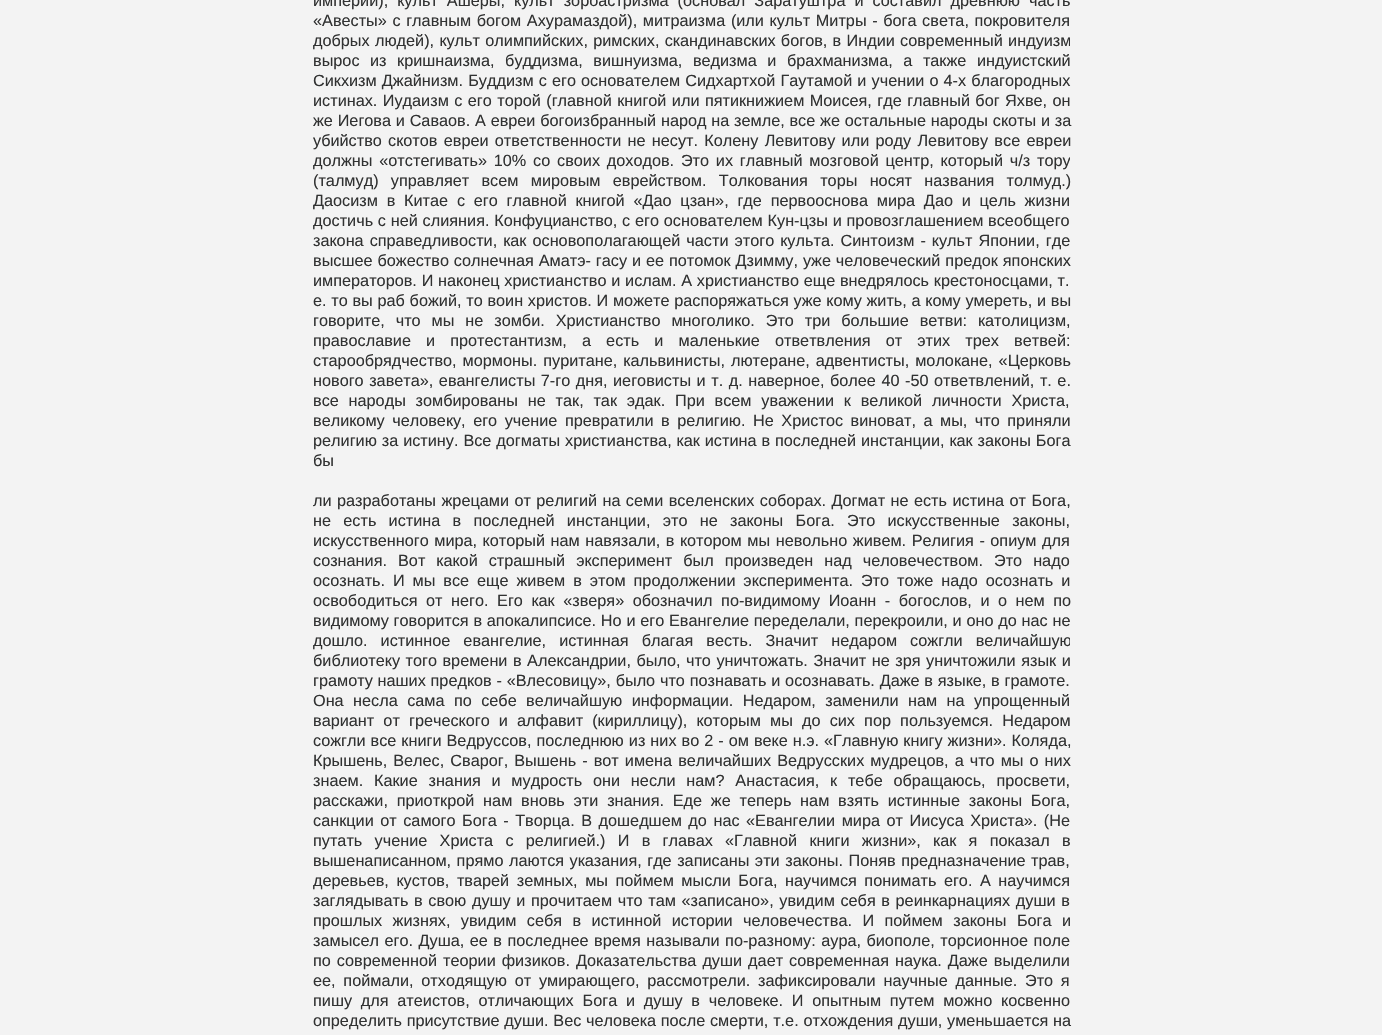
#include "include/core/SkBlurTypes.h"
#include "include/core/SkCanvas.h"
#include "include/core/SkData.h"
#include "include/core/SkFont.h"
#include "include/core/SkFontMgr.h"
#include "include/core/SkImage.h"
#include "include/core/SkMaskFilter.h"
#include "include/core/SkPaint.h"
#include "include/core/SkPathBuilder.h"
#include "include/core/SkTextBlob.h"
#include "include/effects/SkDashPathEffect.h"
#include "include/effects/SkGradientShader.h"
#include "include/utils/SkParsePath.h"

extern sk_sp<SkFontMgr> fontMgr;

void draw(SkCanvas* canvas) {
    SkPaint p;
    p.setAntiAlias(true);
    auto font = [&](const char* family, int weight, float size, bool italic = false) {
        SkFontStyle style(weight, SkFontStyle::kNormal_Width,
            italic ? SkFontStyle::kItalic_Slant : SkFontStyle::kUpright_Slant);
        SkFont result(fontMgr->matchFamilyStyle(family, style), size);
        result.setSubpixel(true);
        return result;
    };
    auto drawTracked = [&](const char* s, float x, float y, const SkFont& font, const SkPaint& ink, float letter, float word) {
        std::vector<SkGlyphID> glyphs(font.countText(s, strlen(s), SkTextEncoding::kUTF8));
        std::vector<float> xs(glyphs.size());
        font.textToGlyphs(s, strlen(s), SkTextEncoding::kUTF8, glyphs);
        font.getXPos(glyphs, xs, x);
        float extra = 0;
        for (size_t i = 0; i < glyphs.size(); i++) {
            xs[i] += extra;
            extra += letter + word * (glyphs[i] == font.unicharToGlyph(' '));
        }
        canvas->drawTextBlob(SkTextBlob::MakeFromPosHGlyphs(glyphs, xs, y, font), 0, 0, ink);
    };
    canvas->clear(0xFFF3F3F3);
    auto font1 = font("Liberation Sans", 400, 16.25f);
    p.setColor(0xFF313232);
    drawTracked("империи), культ Ашеры, культ зороастризма (основал Заратуштра и составил древнюю часть", 313, 6, font1, p, 0, 4.5f);
    drawTracked("«Авесты» с главным богом Ахурамаздой), митраизма (или культ Митры - бога света, покровителя", 313, 26, font1, p, 0, 1.1f);
    canvas->save();
    canvas->clipRect(SkRect::MakeLTRB(313, 0, 1070, 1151));
    drawTracked("добрых людей), культ олимпийских, римских, скандинавских богов, в Индии современный индуизм", 313, 46, font1, p, 0, 0.75f);
    canvas->restore();
    drawTracked("вырос из кришнаизма, буддизма, вишнуизма, ведизма и брахманизма, а также индуистский", 313, 66, font1, p, 0, 6);
    drawTracked("Сикхизм Джайнизм. Буддизм с его основателем Сидхартхой Гаутамой и учении о 4-х благородных", 313, 86, font1, p, 0, 0.6f);
    drawTracked("истинах. Иудаизм с его торой (главной книгой или пятикнижием Моисея, где главный бог Яхве, он", 313, 106, font1, p, 0, 0.9f);
    drawTracked("же Иегова и Саваов. А евреи богоизбранный народ на земле, все же остальные народы скоты и за", 313, 126, font1, p, 0, 0.25f);
    drawTracked("убийство скотов евреи ответственности не несут. Колену Левитову или роду Левитову все евреи", 313, 146, font1, p, 0, 1.75f);
    canvas->save();
    canvas->clipRect(SkRect::MakeLTRB(313, 0, 1070, 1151));
    drawTracked("должны «отстегивать» 10% со своих доходов. Это их главный мозговой центр, который ч/з тору", 313, 166, font1, p, 0, 2.25f);
    canvas->restore();
    drawTracked("(талмуд) управляет всем мировым еврейством. Толкования торы носят названия толмуд.)", 313, 186, font1, p, 0, 7.75f);
    canvas->save();
    canvas->clipRect(SkRect::MakeLTRB(313, 0, 1070, 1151));
    drawTracked("Даосизм в Китае с его главной книгой «Дао цзан», где первооснова мира Дао и цель жизни", 313, 206, font1, p, 0, 4.25f);
    drawTracked("достичь с ней слияния. Конфуцианство, с его основателем Кун-цзы и провозглашением всеобщего", 313, 226, font1, p, 0, 0.25f);
    canvas->restore();
    drawTracked("закона справедливости, как основополагающей части этого культа. Синтоизм - культ Японии, где", 313, 246, font1, p, 0, 1.5f);
    drawTracked("высшее божество солнечная Аматэ- гасу и ее потомок Дзимму, уже человеческий предок японских", 313, 266, font1, p, 0, 0.4f);
    drawTracked("императоров. И наконец христианство и ислам. А христианство еще внедрялось крестоносцами, т.", 313, 286, font1, p, 0, 0.25f);
    drawTracked("е. то вы раб божий, то воин христов. И можете распоряжаться уже кому жить, а кому умереть, и вы", 313, 306, font1, p, 0, 0.2f);
    drawTracked("говорите, что мы не зомби. Христианство многолико. Это три большие ветви: католицизм,", 313, 326, font1, p, 0, 6.4f);
    drawTracked("православие и протестантизм, а есть и маленькие ответвления от этих трех ветвей:", 313, 346, font1, p, 0, 10.6f);
    drawTracked("старообрядчество, мормоны. пуритане, кальвинисты, лютеране, адвентисты, молокане, «Церковь", 313, 366, font1, p, 0, 1.5f);
    drawTracked("нового завета», евангелисты 7-го дня, иеговисты и т. д. наверное, более 40 -50 ответвлений, т. е.", 313, 386, font1, p, 0, 1);
    drawTracked("все народы зомбированы не так, так эдак. При всем уважении к великой личности Христа,", 313, 406, font1, p, 0, 5.25f);
    drawTracked("великому человеку, его учение превратили в религию. Не Христос виноват, а мы, что приняли", 313, 426, font1, p, 0, 3);
    drawTracked("религию за истину. Все догматы христианства, как истина в последней инстанции, как законы Бога", 313, 446, font1, p, 0, 0.4f);
    canvas->drawString("бы", 313, 466, font1, p);
    drawTracked("ли разработаны жрецами от религий на семи вселенских соборах. Догмат не есть истина от Бога,", 313, 506, font1, p, 0, 0.9f);
    drawTracked("не есть истина в последней инстанции, это не законы Бога. Это искусственные законы,", 313, 526, font1, p, 0, 7.75f);
    drawTracked("искусственного мира, который нам навязали, в котором мы невольно живем. Религия - опиум для", 313, 546, font1, p, 0, 1);
    drawTracked("сознания. Вот какой страшный эксперимент был произведен над человечеством. Это надо", 313, 566, font1, p, 0, 6.5f);
    drawTracked("осознать. И мы все еще живем в этом продолжении эксперимента. Это тоже надо осознать и", 313, 586, font1, p, 0, 3.4f);
    drawTracked("освободиться от него. Его как «зверя» обозначил по-видимому Иоанн - богослов, и о нем по", 313, 606, font1, p, 0, 4);
    drawTracked("видимому говорится в апокалипсисе. Но и его Евангелие переделали, перекроили, и оно до нас не", 313, 626, font1, p, 0, 0.25f);
    canvas->save();
    canvas->clipRect(SkRect::MakeLTRB(313, 0, 1070, 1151));
    drawTracked("дошло. истинное евангелие, истинная благая весть. Значит недаром сожгли величайшую", 313, 646, font1, p, 0, 8.5f);
    canvas->restore();
    drawTracked("библиотеку того времени в Александрии, было, что уничтожать. Значит не зря уничтожили язык и", 313, 666, font1, p, 0, 1);
    drawTracked("грамоту наших предков - «Влесовицу», было что познавать и осознавать. Даже в языке, в грамоте.", 313, 686, font1, p, 0, 0.25f);
    drawTracked("Она несла сама по себе величайшую информации. Недаром, заменили нам на упрощенный", 313, 706, font1, p, 0, 4.9f);
    drawTracked("вариант от греческого и алфавит (кириллицу), которым мы до сих пор пользуемся. Недаром", 313, 726, font1, p, 0, 4.6f);
    drawTracked("сожгли все книги Ведруссов, последнюю из них во 2 - ом веке н.э. «Главную книгу жизни». Коляда,", 313, 746, font1, p, 0, 0.5f);
    drawTracked("Крышень, Велес, Сварог, Вышень - вот имена величайших Ведрусских мудрецов, а что мы о них", 313, 766, font1, p, 0, 1.5f);
    drawTracked("знаем. Какие знания и мудрость они несли нам? Анастасия, к тебе обращаюсь, просвети,", 313, 786, font1, p, 0, 6.25f);
    drawTracked("расскажи, приоткрой нам вновь эти знания. Еде же теперь нам взять истинные законы Бога,", 313, 806, font1, p, 0, 4.25f);
    drawTracked("санкции от самого Бога - Творца. В дошедшем до нас «Евангелии мира от Иисуса Христа». (Не", 313, 826, font1, p, 0, 2);
    drawTracked("путать учение Христа с религией.) И в главах «Главной книги жизни», как я показал в", 313, 846, font1, p, 0, 7.75f);
    drawTracked("вышенаписанном, прямо лаются указания, где записаны эти законы. Поняв предназначение трав,", 313, 866, font1, p, 0, 1);
    canvas->save();
    canvas->clipRect(SkRect::MakeLTRB(313, 0, 1070, 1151));
    drawTracked("деревьев, кустов, тварей земных, мы поймем мысли Бога, научимся понимать его. А научимся", 313, 886, font1, p, 0, 3);
    canvas->restore();
    drawTracked("заглядывать в свою душу и прочитаем что там «записано», увидим себя в реинкарнациях души в", 313, 906, font1, p, 0, 1.1f);
    drawTracked("прошлых жизнях, увидим себя в истинной истории человечества. И поймем законы Бога и", 313, 926, font1, p, 0, 5.9f);
    drawTracked("замысел его. Душа, ее в последнее время называли по-разному: аура, биополе, торсионное поле", 313, 946, font1, p, 0, 1);
    drawTracked("по современной теории физиков. Доказательства души дает современная наука. Даже выделили", 313, 966, font1, p, 0, 1.5f);
    drawTracked("ее, поймали, отходящую от умирающего, рассмотрели. зафиксировали научные данные. Это я", 313, 986, font1, p, 0, 3.25f);
    drawTracked("пишу для атеистов, отличающих Бога и душу в человеке. И опытным путем можно косвенно", 313, 1006, font1, p, 0, 4.25f);
    drawTracked("определить присутствие души. Вес человека после смерти, т.е. отхождения души, уменьшается на", 313, 1026, font1, p, 0, 0.25f);
}
